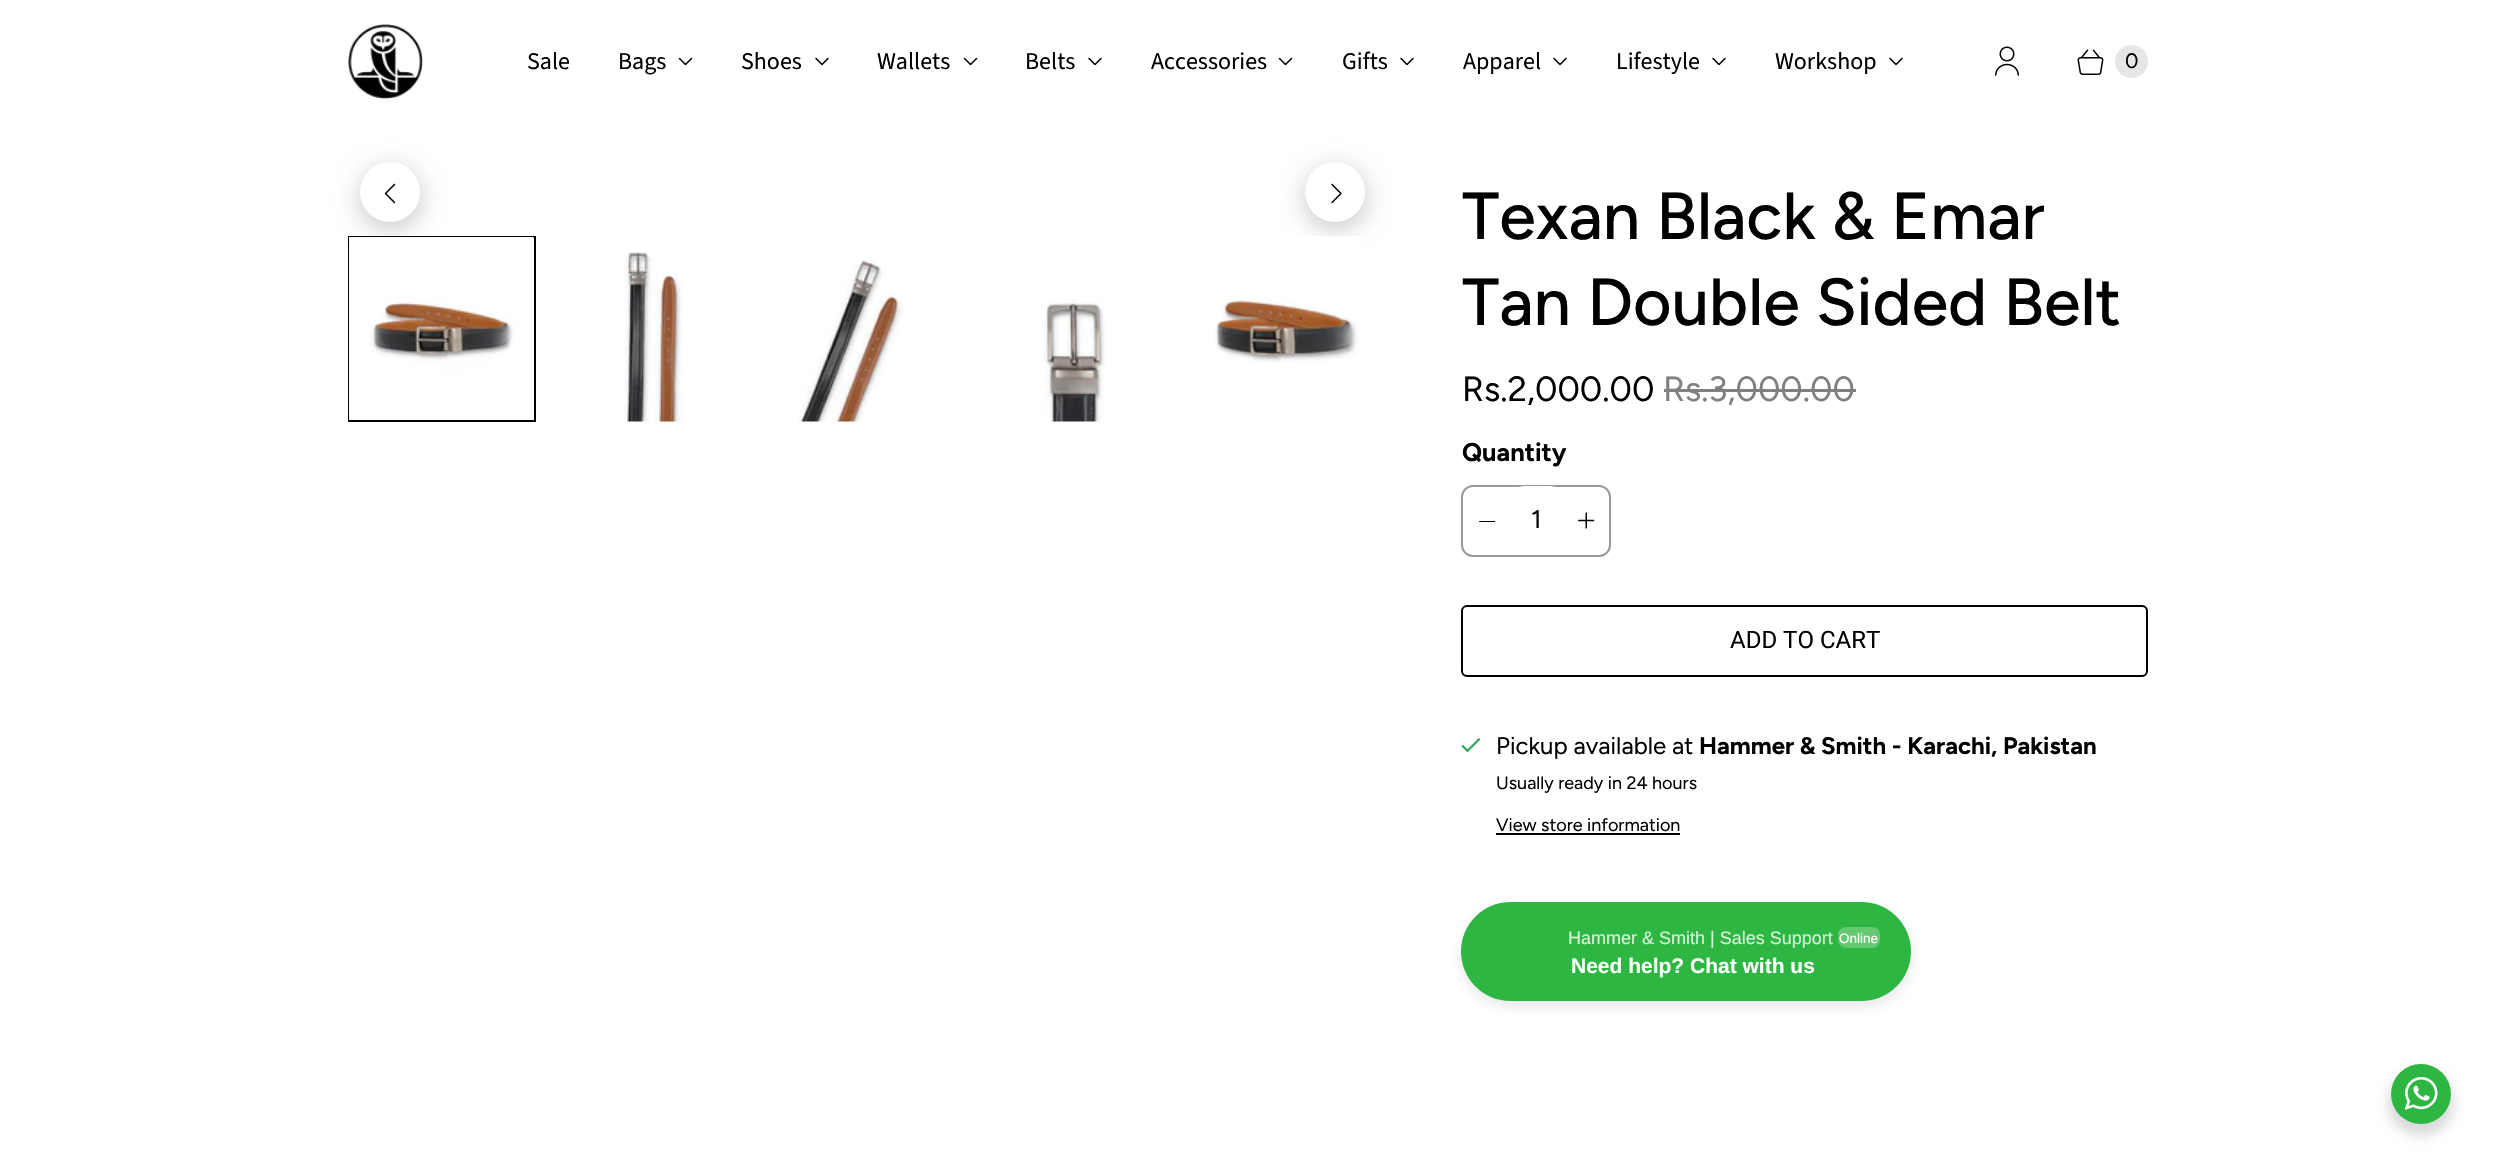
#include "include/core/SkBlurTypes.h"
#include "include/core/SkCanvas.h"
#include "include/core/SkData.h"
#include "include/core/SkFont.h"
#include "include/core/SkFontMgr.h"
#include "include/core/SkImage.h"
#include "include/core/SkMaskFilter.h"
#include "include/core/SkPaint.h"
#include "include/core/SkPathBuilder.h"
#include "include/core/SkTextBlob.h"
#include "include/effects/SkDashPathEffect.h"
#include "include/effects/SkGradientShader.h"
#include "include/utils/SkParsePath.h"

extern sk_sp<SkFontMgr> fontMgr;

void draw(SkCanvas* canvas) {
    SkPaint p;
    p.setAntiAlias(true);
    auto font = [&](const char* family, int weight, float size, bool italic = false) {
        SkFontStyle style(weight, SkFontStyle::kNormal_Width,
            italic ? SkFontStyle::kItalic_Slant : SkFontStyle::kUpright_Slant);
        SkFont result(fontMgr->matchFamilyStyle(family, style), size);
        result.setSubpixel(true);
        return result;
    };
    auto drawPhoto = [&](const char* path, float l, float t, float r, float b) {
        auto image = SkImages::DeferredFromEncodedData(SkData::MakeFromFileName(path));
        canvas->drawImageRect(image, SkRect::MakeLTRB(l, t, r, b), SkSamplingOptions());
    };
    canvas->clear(0xFFFFFFFF);
    drawPhoto("media/1.png", 348, 24, 423, 99);
    auto font1 = font("Source Sans Pro", 400, 24);
    p.setColor(0xFF000000);
    canvas->drawString("Sale", 527, 69, font1, p);
    canvas->drawString("Bags", 618, 69, font1, p);
    drawPhoto("media/2.png", 678, 57, 693, 66);
    canvas->drawString("Shoes", 741, 69, font1, p);
    drawPhoto("media/3.png", 815, 57, 829, 66);
    canvas->drawString("Wallets", 877, 69, font1, p);
    drawPhoto("media/2.png", 963, 57, 978, 66);
    canvas->drawString("Belts", 1025, 69, font1, p);
    drawPhoto("media/3.png", 1088, 57, 1102, 66);
    canvas->drawString("Accessories", 1151, 69, font1, p);
    drawPhoto("media/2.png", 1278, 57, 1293, 66);
    canvas->drawString("Gifts", 1342, 69, font1, p);
    drawPhoto("media/3.png", 1400, 57, 1414, 66);
    canvas->drawString("Apparel", 1463, 69, font1, p);
    drawPhoto("media/3.png", 1553, 57, 1567, 66);
    canvas->drawString("Lifestyle", 1616, 69, font1, p);
    drawPhoto("media/3.png", 1712, 57, 1726, 66);
    canvas->drawString("Workshop", 1775, 69, font1, p);
    drawPhoto("media/3.png", 1889, 57, 1903, 66);
    drawPhoto("media/4.png", 1995, 46, 2019, 76);
    drawPhoto("media/5.png", 2077, 49, 2104, 75);
    p.setColor(0xFFE6E6E6);
    canvas->drawCircle(2131.5f, 61.5f, 16.5f, p);
    auto font2 = font("Figtree", 400, 21);
    p.setColor(0xFF000000);
    canvas->drawString("0", 2125, 68, font2, p);
    p.setColor(0x33000000);
    p.setMaskFilter(SkMaskFilter::MakeBlur(kNormal_SkBlurStyle, 12));
    canvas->drawRoundRect(SkRect::MakeLTRB(359, 167, 422, 230), 31.5f, 31.5f, p);
    p.setMaskFilter(nullptr);
    p.setColor(0xFFFFFFFF);
    canvas->drawCircle(390, 192, 30, p);
    drawPhoto("media/6.png", 384, 183, 396, 204);
    p.setColor(0x33000000);
    p.setMaskFilter(SkMaskFilter::MakeBlur(kNormal_SkBlurStyle, 12));
    canvas->drawRoundRect(SkRect::MakeLTRB(1304, 167, 1367, 230), 31.5f, 31.5f, p);
    p.setMaskFilter(nullptr);
    p.setColor(0xFFFFFFFF);
    canvas->drawCircle(1335, 192, 30, p);
    drawPhoto("media/7.png", 1331, 183, 1342, 204);
    p.setStyle(SkPaint::kStroke_Style);
    p.setStrokeWidth(2);
    p.setColor(0xFF000000);
    canvas->drawRect(SkRect::MakeLTRB(349, 237, 535, 421), p);
    drawPhoto("media/8.png", 349, 237, 534, 420);
    drawPhoto("media/9.png", 624, 252, 683, 422);
    drawPhoto("media/10.png", 798, 258, 903, 422);
    drawPhoto("media/11.png", 1042, 300, 1106, 422);
    drawPhoto("media/12.png", 1214, 236, 1362, 363);
    auto font3 = font("Figtree", 500, 66.5f);
    p.setStyle(SkPaint::kFill_Style);
    canvas->drawString("Texan Black & Emar", 1462, 239, font3, p);
    canvas->drawString("Tan Double Sided Belt", 1462, 325, font3, p);
    auto font4 = font("Figtree", 400, 35);
    canvas->drawString("Rs.2,000.00", 1462, 401, font4, p);
    p.setColor(0xFF808080);
    canvas->drawString("Rs.3,000.00", 1663, 401, font4, p);
    canvas->drawRect(SkRect::MakeLTRB(1664, 389, 1856, 392), p);
    auto font5 = font("Figtree", 700, 25.5f);
    p.setColor(0xFF000000);
    canvas->drawString("Quantity", 1462, 461, font5, p);
    p.setStyle(SkPaint::kStroke_Style);
    p.setColor(0xFF999999);
    canvas->drawRoundRect(SkRect::MakeLTRB(1462, 486, 1610, 556), 11, 11, p);
    drawPhoto("media/13.png", 1479, 521, 1496, 522);
    p.setStyle(SkPaint::kFill_Style);
    p.setColor(0xFFFFFFFF);
    canvas->drawRoundRect(SkRect::MakeLTRB(1512, 486, 1562, 555), 12, 12, p);
    auto font6 = font("Figtree", 400, 25.5f);
    p.setColor(0xFF000000);
    canvas->drawString("1", 1531, 528, font6, p);
    drawPhoto("media/14.png", 1578, 512, 1595, 529);
    p.setStyle(SkPaint::kStroke_Style);
    canvas->drawRoundRect(SkRect::MakeLTRB(1462, 606, 2147, 676), 5, 5, p);
    auto font7 = font("Roboto", 400, 24);
    p.setStyle(SkPaint::kFill_Style);
    canvas->drawString("ADD TO CART", 1730, 648, font7, p);
    drawPhoto("media/15.png", 1461, 738, 1481, 753);
    auto font8 = font("Figtree", 400, 24);
    canvas->drawString("Pickup available at", 1496, 754, font8, p);
    auto font9 = font("Figtree", 700, 24);
    canvas->drawString("Hammer & Smith - Karachi, Pakistan", 1699, 754, font9, p);
    auto font10 = font("Figtree", 400, 18);
    canvas->drawString("Usually ready in 24 hours", 1496, 789, font10, p);
    canvas->drawString("View store information", 1496, 831, font10, p);
    canvas->drawRect(SkRect::MakeLTRB(1496, 833, 1680, 835), p);
    p.setColor(0x17202025);
    p.setMaskFilter(SkMaskFilter::MakeBlur(kNormal_SkBlurStyle, 6));
    canvas->drawRoundRect(SkRect::MakeLTRB(1460, 906, 1913, 1008), 51, 51, p);
    p.setMaskFilter(nullptr);
    p.setColor(0xFF2DB742);
    canvas->drawRoundRect(SkRect::MakeLTRB(1461, 902, 1911, 1001), 49.5f, 49.5f, p);
    auto font11 = font("Liberation Sans", 400, 18);
    p.setColor(0xFFD5F0D9);
    canvas->drawString("Hammer & Smith | Sales Support", 1568, 944, font11, p);
    p.setColor(0xFF62C971);
    canvas->drawRoundRect(SkRect::MakeLTRB(1838, 927, 1880, 948), 8, 8, p);
    auto font12 = font("Liberation Sans", 400, 13.5f);
    p.setColor(0xFFFFFFFF);
    canvas->drawString("Online", 1839, 943, font12, p);
    auto font13 = font("Liberation Sans", 700, 21);
    canvas->drawString("Need help? Chat with us", 1571, 973, font13, p);
    p.setColor(0x24000000);
    p.setMaskFilter(SkMaskFilter::MakeBlur(kNormal_SkBlurStyle, 6));
    canvas->drawRoundRect(SkRect::MakeLTRB(2388, 1070, 2454, 1136), 33, 33, p);
    p.setMaskFilter(nullptr);
    p.setColor(0xFF2DB742);
    canvas->drawCircle(2421, 1094, 30, p);
    drawPhoto("media/16.png", 2405, 1077, 2438, 1110);
}
